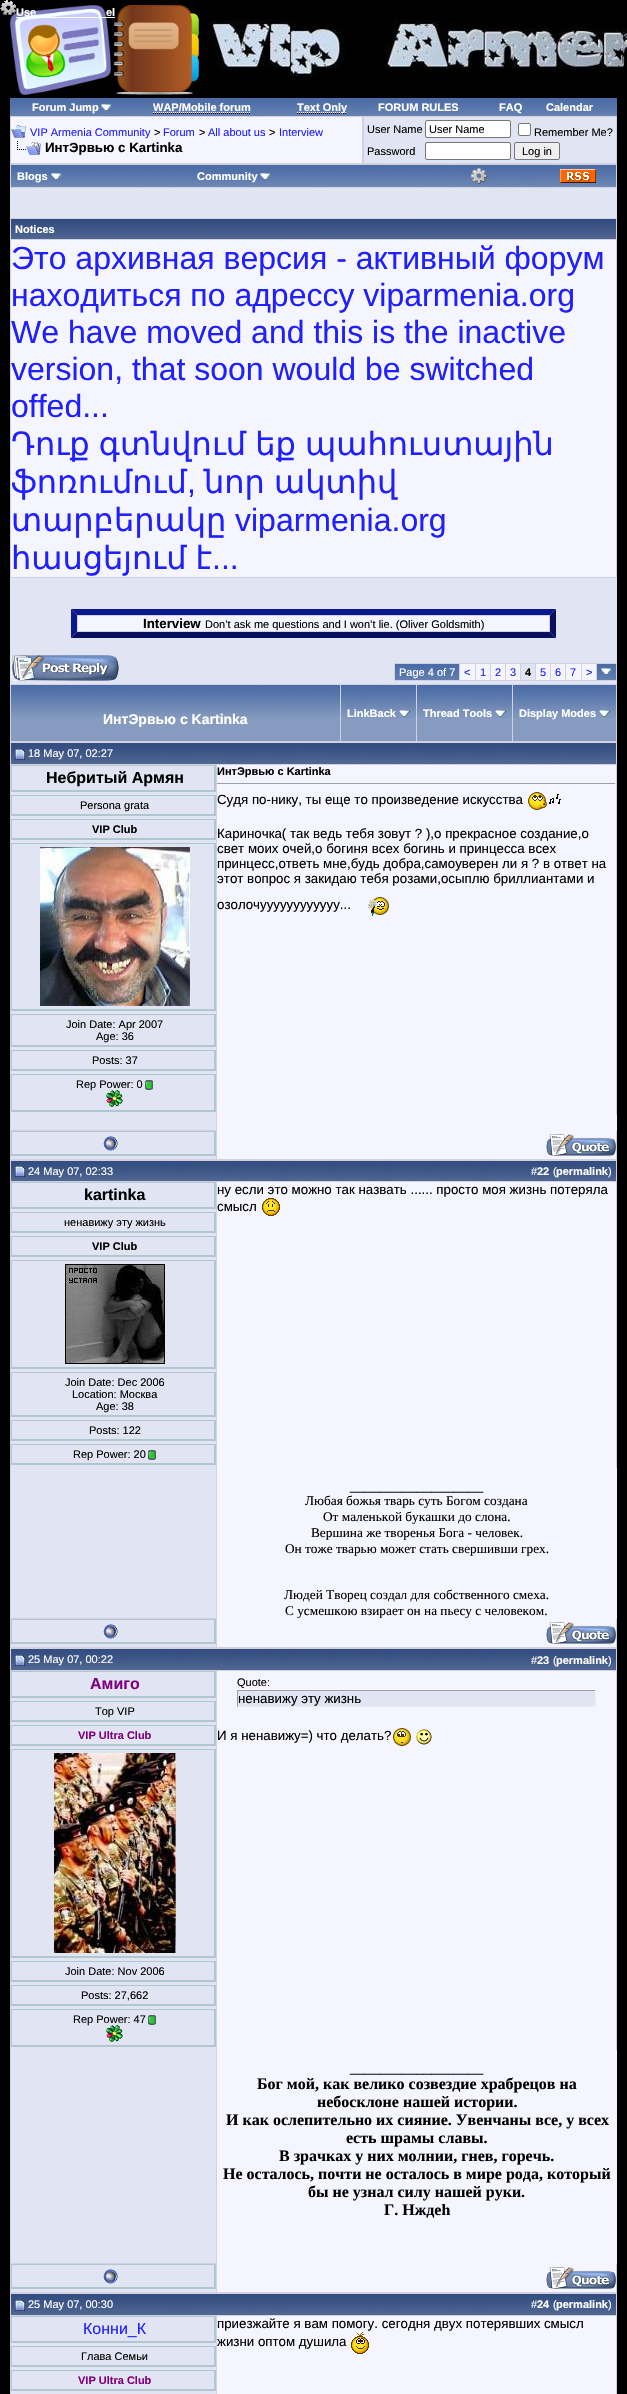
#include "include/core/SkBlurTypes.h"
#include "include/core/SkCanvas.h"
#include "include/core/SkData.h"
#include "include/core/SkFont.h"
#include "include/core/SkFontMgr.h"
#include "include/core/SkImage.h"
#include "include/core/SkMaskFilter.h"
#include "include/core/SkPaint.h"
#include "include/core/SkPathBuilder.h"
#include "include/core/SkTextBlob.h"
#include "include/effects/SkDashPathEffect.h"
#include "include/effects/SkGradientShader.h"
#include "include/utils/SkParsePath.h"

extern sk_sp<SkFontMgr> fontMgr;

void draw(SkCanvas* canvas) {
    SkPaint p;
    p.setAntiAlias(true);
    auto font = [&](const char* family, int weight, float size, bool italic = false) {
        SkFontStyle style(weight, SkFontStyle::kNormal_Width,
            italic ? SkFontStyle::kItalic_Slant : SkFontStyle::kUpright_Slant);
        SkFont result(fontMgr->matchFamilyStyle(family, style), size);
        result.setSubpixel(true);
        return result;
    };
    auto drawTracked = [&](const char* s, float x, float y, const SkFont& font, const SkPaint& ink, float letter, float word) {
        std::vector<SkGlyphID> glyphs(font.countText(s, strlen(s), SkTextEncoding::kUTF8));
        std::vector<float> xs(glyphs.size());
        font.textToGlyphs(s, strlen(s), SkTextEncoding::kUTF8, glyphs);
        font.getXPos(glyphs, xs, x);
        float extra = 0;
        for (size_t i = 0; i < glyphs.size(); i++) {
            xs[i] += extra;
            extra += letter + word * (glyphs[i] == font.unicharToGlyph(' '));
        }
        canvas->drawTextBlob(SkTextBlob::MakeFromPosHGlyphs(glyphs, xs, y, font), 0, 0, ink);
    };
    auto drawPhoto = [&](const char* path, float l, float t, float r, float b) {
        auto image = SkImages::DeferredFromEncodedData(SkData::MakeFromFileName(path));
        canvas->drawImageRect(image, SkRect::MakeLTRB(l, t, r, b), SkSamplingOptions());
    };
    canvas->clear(0xFF000000);
    drawPhoto("media/1.png", 10, 5, 111, 95);
    drawPhoto("media/2.png", 114, 5, 199, 95);
    drawPhoto("media/3.png", 201, 19, 627, 85);
    p.setColor(0xFFE1E4F2);
    canvas->drawRect(SkRect::MakeLTRB(10, 188, 617, 684), p);
    drawPhoto("media/4.png", 10, 98, 26, 116);
    drawPhoto("media/5.png", 0, 0, 16, 15);
    auto font1 = font("Liberation Sans", 700, 11);
    p.setColor(0xFFFFFFFF);
    canvas->drawString("Use", 16, 16, font1, p);
    canvas->drawRect(SkRect::MakeLTRB(16, 17, 115, 18), p);
    canvas->drawString("el", 106, 16, font1, p);
    drawPhoto("media/6.png", 26, 98, 147, 116);
    canvas->drawString("Forum Jump", 32, 111, font1, p);
    drawPhoto("media/7.png", 101, 104, 112, 111);
    drawPhoto("media/8.png", 147, 98, 291, 116);
    canvas->drawString("WAP/Mobile forum", 153, 111, font1, p);
    p.setStyle(SkPaint::kStroke_Style);
    p.setStrokeWidth(1);
    p.setColor(0xFF000000);
    p.setPathEffect(SkDashPathEffect::Make({{1, 1}}, 0));
    canvas->drawPath(SkPathBuilder().moveTo(153, 113.5f).lineTo(251, 113.5f).detach(), p);
    p.setPathEffect(nullptr);
    p.setColor(0xFFFFFFFF);
    p.setPathEffect(SkDashPathEffect::Make({{1, 1}}, 0));
    canvas->drawPath(SkPathBuilder().moveTo(153, 112.5f).lineTo(251, 112.5f).detach(), p);
    p.setPathEffect(nullptr);
    drawPhoto("media/9.png", 291, 98, 372, 116);
    p.setColor(0xFF000000);
    p.setPathEffect(SkDashPathEffect::Make({{1, 1}}, 0));
    canvas->drawPath(SkPathBuilder().moveTo(297, 113.5f).lineTo(347, 113.5f).detach(), p);
    p.setPathEffect(nullptr);
    p.setColor(0xFFFFFFFF);
    p.setPathEffect(SkDashPathEffect::Make({{1, 1}}, 0));
    canvas->drawPath(SkPathBuilder().moveTo(297, 112.5f).lineTo(347, 112.5f).detach(), p);
    p.setPathEffect(nullptr);
    p.setStyle(SkPaint::kFill_Style);
    canvas->drawString("Text Only", 297, 111, font1, p);
    drawPhoto("media/6.png", 372, 98, 493, 116);
    canvas->drawString("FORUM RULES", 378, 111, font1, p);
    drawPhoto("media/10.png", 493, 98, 540, 116);
    canvas->drawString("FAQ", 499, 111, font1, p);
    drawPhoto("media/11.png", 540, 98, 617, 116);
    canvas->drawString("Calendar", 546, 111, font1, p);
    p.setColor(0xFFD1D1E1);
    canvas->drawRect(SkRect::MakeLTRB(10, 116, 617, 188), p);
    p.setColor(0xFFF5F5FF);
    canvas->drawRect(SkRect::MakeLTRB(11, 117, 362, 163), p);
    drawPhoto("media/12.png", 11, 125, 26, 138);
    auto font2 = font("Liberation Sans", 400, 11);
    p.setColor(0xFF2020FF);
    canvas->drawString("VIP Armenia Community", 30, 136, font2, p);
    p.setColor(0xFF000000);
    canvas->drawString(">", 154, 136, font2, p);
    p.setColor(0xFF2020FF);
    canvas->drawString("Forum", 163, 136, font2, p);
    p.setColor(0xFF000000);
    canvas->drawString(">", 199, 136, font2, p);
    p.setColor(0xFF2020FF);
    canvas->drawString("All about us", 208, 136, font2, p);
    p.setColor(0xFF000000);
    canvas->drawString(">", 269, 136, font2, p);
    p.setColor(0xFF2020FF);
    canvas->drawString("Interview", 279, 136, font2, p);
    drawPhoto("media/13.png", 17, 141, 41, 155);
    auto font3 = font("Liberation Sans", 700, 13.3f);
    p.setColor(0xFF000000);
    canvas->drawString("ИнтЭрвью с Kartinka", 45, 152, font3, p);
    p.setColor(0xFFE1E4F2);
    canvas->drawRect(SkRect::MakeLTRB(364, 117, 616, 163), p);
    p.setColor(0xFF000000);
    canvas->drawString("User Name", 367, 133, font2, p);
    p.setColor(0xFFFFFFFF);
    canvas->drawRoundRect(SkRect::MakeLTRB(425.5f, 120.5f, 510.5f, 137.5f), 1.5f, 1.5f, p);
    p.setStyle(SkPaint::kStroke_Style);
    p.setColor(0xFF767676);
    canvas->drawRoundRect(SkRect::MakeLTRB(425.5f, 120.5f, 510.5f, 137.5f), 1.5f, 1.5f, p);
    p.setStyle(SkPaint::kFill_Style);
    p.setColor(0xFF000000);
    canvas->drawString("User Name", 429, 133, font2, p);
    p.setColor(0xFFFFFFFF);
    canvas->drawRoundRect(SkRect::MakeLTRB(518.5f, 123.5f, 530.5f, 135.5f), 1.5f, 1.5f, p);
    p.setStyle(SkPaint::kStroke_Style);
    p.setColor(0xFF767676);
    canvas->drawRoundRect(SkRect::MakeLTRB(518.5f, 123.5f, 530.5f, 135.5f), 1.5f, 1.5f, p);
    p.setStyle(SkPaint::kFill_Style);
    p.setColor(0xFF000000);
    canvas->drawString("Remember Me?", 534, 136, font2, p);
    canvas->drawString("Password", 367, 155, font2, p);
    p.setColor(0xFFFFFFFF);
    canvas->drawRoundRect(SkRect::MakeLTRB(425.5f, 142.5f, 510.5f, 159.5f), 1.5f, 1.5f, p);
    p.setStyle(SkPaint::kStroke_Style);
    p.setColor(0xFF767676);
    canvas->drawRoundRect(SkRect::MakeLTRB(425.5f, 142.5f, 510.5f, 159.5f), 1.5f, 1.5f, p);
    p.setStyle(SkPaint::kFill_Style);
    p.setColor(0xFFEFEFEF);
    canvas->drawRoundRect(SkRect::MakeLTRB(514.5f, 142.5f, 559.5f, 159.5f), 1.5f, 1.5f, p);
    p.setStyle(SkPaint::kStroke_Style);
    p.setColor(0xFF767676);
    canvas->drawRoundRect(SkRect::MakeLTRB(514.5f, 142.5f, 559.5f, 159.5f), 1.5f, 1.5f, p);
    p.setStyle(SkPaint::kFill_Style);
    p.setColor(0xFF000000);
    canvas->drawString("Log in", 522, 155, font2, p);
    drawPhoto("media/14.png", 11, 165, 191, 187);
    p.setColor(0xFFFFFFFF);
    canvas->drawString("Blogs", 17, 180, font1, p);
    drawPhoto("media/15.png", 51, 173, 62, 180);
    drawPhoto("media/16.png", 191, 165, 465, 187);
    canvas->drawString("Community", 197, 180, font1, p);
    drawPhoto("media/17.png", 260, 173, 271, 180);
    drawPhoto("media/18.png", 465, 165, 554, 187);
    drawPhoto("media/19.png", 471, 168, 487, 184);
    drawPhoto("media/20.png", 554, 165, 616, 187);
    drawPhoto("media/21.png", 560, 169, 596, 183);
    p.setColor(0xFFD1D1E1);
    canvas->drawRect(SkRect::MakeLTRB(10, 218, 617, 578), p);
    drawPhoto("media/22.png", 11, 219, 616, 239);
    p.setColor(0xFFFFFFFF);
    canvas->drawString("Notices", 15, 233, font1, p);
    p.setColor(0xFFF5F5FF);
    canvas->drawRect(SkRect::MakeLTRB(11, 240, 616, 577), p);
    auto font4 = font("Liberation Sans", 400, 32);
    p.setColor(0xFF2020FF);
    {
        const struct { const char* s; float x, y; } items[] = {
            {"Это архивная версия - активный форум", 11, 269},
            {"находиться по адрессу viparmenia.org", 11, 306},
            {"We have moved and this is the inactive", 11, 343},
            {"version, that soon would be switched", 11, 380},
            {"offed...", 11, 417},
        };
        for (auto [s, x, y] : items) {
            canvas->drawString(s, x, y, font4, p);
        }
    }
    auto font5 = font("DejaVu Sans", 400, 32);
    drawTracked("Դուք գտնվում եք պահուստային", 11, 455, font5, p, 0, -1);
    canvas->drawString("ֆոռումում", 11, 493, font5, p);
    canvas->drawString(",", 187, 493, font4, p);
    drawTracked("նոր ակտիվ", 204, 493, font5, p, 0, -1);
    canvas->drawString("տարբերակը", 11, 531, font5, p);
    canvas->drawString("viparmenia.org", 235, 531, font4, p);
    drawTracked("հասցեյում է", 11, 569, font5, p, 0, -1);
    canvas->drawString("...", 212, 569, font4, p);
    p.setColor(0xFFD1D1E1);
    canvas->drawRect(SkRect::MakeLTRB(71, 609, 556, 638), p);
    p.setColor(0xFF0B198C);
    canvas->drawPath(SkPathBuilder().moveTo(71, 609).lineTo(556, 609).lineTo(550, 615).lineTo(77, 615).close().detach(), p);
    p.setColor(0xFF07115D);
    canvas->drawPath(SkPathBuilder().moveTo(556, 609).lineTo(556, 638).lineTo(550, 632).lineTo(550, 615).close().detach(), p);
    canvas->drawPath(SkPathBuilder().moveTo(556, 638).lineTo(71, 638).lineTo(77, 632).lineTo(550, 632).close().detach(), p);
    p.setColor(0xFF0B198C);
    canvas->drawPath(SkPathBuilder().moveTo(71, 638).lineTo(71, 609).lineTo(77, 615).lineTo(77, 632).close().detach(), p);
    p.setColor(0xFFF5F5FF);
    canvas->drawRect(SkRect::MakeLTRB(78, 616, 549, 631), p);
    p.setColor(0xFF000000);
    canvas->drawString("Interview", 143, 628, font3, p);
    canvas->drawString("Don’t ask me questions and I won’t lie. (Oliver Goldsmith)", 205, 628, font2, p);
    drawPhoto("media/23.png", 11, 655, 119, 681);
    p.setColor(0xFFD1D1E1);
    canvas->drawRect(SkRect::MakeLTRB(394, 663, 617, 681), p);
    drawPhoto("media/24.png", 395, 664, 459, 680);
    p.setColor(0xFFFFFFFF);
    canvas->drawString("Page 4 of 7", 399, 676, font2, p);
    p.setColor(0xFFF5F5FF);
    canvas->drawRect(SkRect::MakeLTRB(460, 664, 475, 680), p);
    p.setColor(0xFF2020FF);
    canvas->drawString("<", 464, 676, font2, p);
    p.setColor(0xFFF5F5FF);
    canvas->drawRect(SkRect::MakeLTRB(476, 664, 490, 680), p);
    p.setColor(0xFF2020FF);
    canvas->drawString("1", 480, 676, font2, p);
    p.setColor(0xFFF5F5FF);
    canvas->drawRect(SkRect::MakeLTRB(491, 664, 505, 680), p);
    p.setColor(0xFF2020FF);
    canvas->drawString("2", 495, 676, font2, p);
    p.setColor(0xFFF5F5FF);
    canvas->drawRect(SkRect::MakeLTRB(506, 664, 520, 680), p);
    p.setColor(0xFF2020FF);
    canvas->drawString("3", 510, 676, font2, p);
    p.setColor(0xFFE1E4F2);
    canvas->drawRect(SkRect::MakeLTRB(521, 664, 535, 680), p);
    p.setColor(0xFF000000);
    canvas->drawString("4", 525, 676, font1, p);
    p.setColor(0xFFF5F5FF);
    canvas->drawRect(SkRect::MakeLTRB(536, 664, 550, 680), p);
    p.setColor(0xFF2020FF);
    canvas->drawString("5", 540, 676, font2, p);
    p.setColor(0xFFF5F5FF);
    canvas->drawRect(SkRect::MakeLTRB(551, 664, 565, 680), p);
    p.setColor(0xFF2020FF);
    canvas->drawString("6", 555, 676, font2, p);
    p.setColor(0xFFF5F5FF);
    canvas->drawRect(SkRect::MakeLTRB(566, 664, 581, 680), p);
    p.setColor(0xFF2020FF);
    canvas->drawString("7", 570, 676, font2, p);
    p.setColor(0xFFF5F5FF);
    canvas->drawRect(SkRect::MakeLTRB(582, 664, 596, 680), p);
    p.setColor(0xFF2020FF);
    canvas->drawString(">", 586, 676, font2, p);
    drawPhoto("media/25.png", 597, 664, 616, 680);
    drawPhoto("media/26.png", 601, 668, 612, 675);
    p.setColor(0xFFD1D1E1);
    canvas->drawRect(SkRect::MakeLTRB(10, 684, 617, 742), p);
    p.setColor(0xFF869BBF);
    canvas->drawRect(SkRect::MakeLTRB(11, 718, 340, 741), p);
    drawPhoto("media/27.png", 11, 685, 340, 718);
    auto font6 = font("Liberation Sans", 700, 14);
    p.setColor(0xFFFFFFFF);
    canvas->drawString("ИнтЭрвью с Kartinka", 103, 724, font6, p);
    p.setColor(0xFF869BBF);
    canvas->drawRect(SkRect::MakeLTRB(341, 718, 416, 741), p);
    drawPhoto("media/28.png", 341, 685, 416, 718);
    p.setColor(0xFFFFFFFF);
    canvas->drawString("LinkBack", 347, 717, font1, p);
    drawPhoto("media/29.png", 399, 710, 410, 717);
    p.setColor(0xFF869BBF);
    canvas->drawRect(SkRect::MakeLTRB(417, 718, 512, 741), p);
    drawPhoto("media/30.png", 417, 685, 512, 718);
    p.setColor(0xFFFFFFFF);
    canvas->drawString("Thread Tools", 423, 717, font1, p);
    drawPhoto("media/31.png", 495, 710, 506, 717);
    p.setColor(0xFF869BBF);
    canvas->drawRect(SkRect::MakeLTRB(513, 718, 616, 741), p);
    drawPhoto("media/32.png", 513, 685, 616, 718);
    p.setColor(0xFFFFFFFF);
    canvas->drawString("Display Modes", 519, 717, font1, p);
    drawPhoto("media/33.png", 599, 710, 610, 717);
    drawPhoto("media/34.png", 11, 743, 217, 764);
    {
        const struct { float l, t, r, b; SkColor color; } items[] = {
            {10, 742, 617, 743, 0xFFD1D1E1},
            {10, 764, 217, 765, 0xFFD1D1E1},
            {10, 742, 11, 1115, 0xFFD1D1E1},
        };
        for (auto [l, t, r, b, color] : items) {
            p.setColor(color);
            canvas->drawRect(SkRect::MakeLTRB(l, t, r, b), p);
        }
    }
    drawPhoto("media/35.png", 15, 749, 25, 760);
    p.setColor(0xFFFFFFFF);
    canvas->drawString("18 May 07, 02:27", 28, 757, font2, p);
    drawPhoto("media/36.png", 217, 743, 616, 764);
    {
        const struct { float l, t, r, b; SkColor color; } items[] = {
            {616, 742, 617, 1115, 0xFFD1D1E1},
            {217, 764, 617, 765, 0xFFD1D1E1},
            {11, 766, 216, 1130, 0xFFE1E4F2},
            {216, 765, 217, 1160, 0xFFD1D1E1},
            {11, 765, 216, 766, 0xFFB1C7CF},
            {214, 765, 216, 792, 0xFFB1C7CF},
            {11, 790, 216, 792, 0xFFB1C7CF},
            {11, 765, 12, 792, 0xFFB1C7CF},
        };
        for (auto [l, t, r, b, color] : items) {
            p.setColor(color);
            canvas->drawRect(SkRect::MakeLTRB(l, t, r, b), p);
        }
    }
    auto font7 = font("Liberation Sans", 700, 16);
    p.setColor(0xFF000000);
    canvas->drawString("Небритый Армян", 46, 783, font7, p);
    {
        const struct { float l, t, r, b; SkColor color; } items[] = {
            {11, 795, 216, 796, 0xFFB1C7CF},
            {214, 795, 216, 816, 0xFFB1C7CF},
            {11, 814, 216, 816, 0xFFB1C7CF},
            {11, 795, 12, 816, 0xFFB1C7CF},
        };
        for (auto [l, t, r, b, color] : items) {
            p.setColor(color);
            canvas->drawRect(SkRect::MakeLTRB(l, t, r, b), p);
        }
    }
    p.setColor(0xFF000000);
    canvas->drawString("Persona grata", 80, 809, font2, p);
    {
        const struct { float l, t, r, b; SkColor color; } items[] = {
            {11, 819, 216, 820, 0xFFB1C7CF},
            {214, 819, 216, 840, 0xFFB1C7CF},
            {11, 838, 216, 840, 0xFFB1C7CF},
            {11, 819, 12, 840, 0xFFB1C7CF},
        };
        for (auto [l, t, r, b, color] : items) {
            p.setColor(color);
            canvas->drawRect(SkRect::MakeLTRB(l, t, r, b), p);
        }
    }
    p.setColor(0xFF000000);
    canvas->drawString("VIP Club", 92, 833, font1, p);
    {
        const struct { float l, t, r, b; SkColor color; } items[] = {
            {11, 843, 216, 844, 0xFFB1C7CF},
            {214, 843, 216, 1011, 0xFFB1C7CF},
            {11, 1009, 216, 1011, 0xFFB1C7CF},
            {11, 843, 12, 1011, 0xFFB1C7CF},
        };
        for (auto [l, t, r, b, color] : items) {
            p.setColor(color);
            canvas->drawRect(SkRect::MakeLTRB(l, t, r, b), p);
        }
    }
    drawPhoto("media/37.png", 40, 847, 190, 1006);
    {
        const struct { float l, t, r, b; SkColor color; } items[] = {
            {11, 1014, 216, 1015, 0xFFB1C7CF},
            {214, 1014, 216, 1047, 0xFFB1C7CF},
            {11, 1045, 216, 1047, 0xFFB1C7CF},
            {11, 1014, 12, 1047, 0xFFB1C7CF},
        };
        for (auto [l, t, r, b, color] : items) {
            p.setColor(color);
            canvas->drawRect(SkRect::MakeLTRB(l, t, r, b), p);
        }
    }
    p.setColor(0xFF000000);
    canvas->drawString("Join Date: Apr 2007", 66, 1028, font2, p);
    canvas->drawString("Age: 36", 96, 1040, font2, p);
    {
        const struct { float l, t, r, b; SkColor color; } items[] = {
            {11, 1050, 216, 1051, 0xFFB1C7CF},
            {214, 1050, 216, 1071, 0xFFB1C7CF},
            {11, 1069, 216, 1071, 0xFFB1C7CF},
            {11, 1050, 12, 1071, 0xFFB1C7CF},
        };
        for (auto [l, t, r, b, color] : items) {
            p.setColor(color);
            canvas->drawRect(SkRect::MakeLTRB(l, t, r, b), p);
        }
    }
    p.setColor(0xFF000000);
    canvas->drawString("Posts: 37", 92, 1064, font2, p);
    {
        const struct { float l, t, r, b; SkColor color; } items[] = {
            {11, 1074, 216, 1075, 0xFFB1C7CF},
            {214, 1074, 216, 1112, 0xFFB1C7CF},
            {11, 1110, 216, 1112, 0xFFB1C7CF},
            {11, 1074, 12, 1112, 0xFFB1C7CF},
        };
        for (auto [l, t, r, b, color] : items) {
            p.setColor(color);
            canvas->drawRect(SkRect::MakeLTRB(l, t, r, b), p);
        }
    }
    p.setColor(0xFF000000);
    canvas->drawString("Rep Power: 0", 76, 1088, font2, p);
    drawPhoto("media/38.png", 145, 1080, 153, 1090);
    drawPhoto("media/39.png", 106, 1090, 123, 1107);
    p.setColor(0xFFF5F5FF);
    canvas->drawRect(SkRect::MakeLTRB(217, 765, 616, 1115), p);
    p.setColor(0xFF000000);
    canvas->drawString("ИнтЭрвью с Kartinka", 217, 775, font1, p);
    p.setColor(0xFF9F9F9F);
    canvas->drawRect(SkRect::MakeLTRB(217, 783, 616, 784), p);
    p.setColor(0xFFEEEEEE);
    canvas->drawRect(SkRect::MakeLTRB(615, 783, 616, 784), p);
    auto font8 = font("Liberation Sans", 400, 13.3f);
    p.setColor(0xFF000000);
    canvas->drawString("Судя по-нику, ты еще то произведение искусства", 217, 804, font8, p);
    drawPhoto("media/40.png", 528, 792, 561, 810);
    {
        const struct { const char* s; float x, y; } items[] = {
            {"Кариночка( так ведь тебя зовут ? ),о прекрасное создание,о", 217, 838},
            {"свет моих очей,о богиня всех богинь и принцесса всех", 217, 853},
            {"принцесс,ответь мне,будь добра,самоуверен ли я ? в ответ на", 217, 868},
            {"этот вопрос я закидаю тебя розами,осыплю бриллиантами и", 217, 883},
            {"озолочуууууууууууу...", 217, 909},
        };
        for (auto [s, x, y] : items) {
            canvas->drawString(s, x, y, font8, p);
        }
    }
    drawPhoto("media/41.png", 368, 897, 389, 916);
    {
        const struct { float l, t, r, b; SkColor color; } items[] = {
            {10, 1130, 217, 1131, 0xFFD1D1E1},
            {10, 1115, 11, 1131, 0xFFD1D1E1},
            {217, 1115, 617, 1131, 0xFFF5F5FF},
            {11, 1132, 216, 1159, 0xFFE1E4F2},
            {10, 1159, 217, 1161, 0xFFD1D1E1},
            {10, 1131, 11, 1160, 0xFFD1D1E1},
            {11, 1131, 216, 1132, 0xFFB1C7CF},
            {214, 1131, 216, 1156, 0xFFB1C7CF},
            {11, 1154, 216, 1156, 0xFFB1C7CF},
            {11, 1131, 12, 1156, 0xFFB1C7CF},
        };
        for (auto [l, t, r, b, color] : items) {
            p.setColor(color);
            canvas->drawRect(SkRect::MakeLTRB(l, t, r, b), p);
        }
    }
    drawPhoto("media/42.png", 103, 1136, 118, 1151);
    {
        const struct { float l, t, r, b; SkColor color; } items[] = {
            {217, 1131, 616, 1159, 0xFFF5F5FF},
            {616, 1131, 617, 1160, 0xFFD1D1E1},
            {217, 1159, 617, 1161, 0xFFD1D1E1},
        };
        for (auto [l, t, r, b, color] : items) {
            p.setColor(color);
            canvas->drawRect(SkRect::MakeLTRB(l, t, r, b), p);
        }
    }
    drawPhoto("media/43.png", 546, 1134, 616, 1156);
    drawPhoto("media/44.png", 11, 1161, 217, 1181);
    canvas->drawRect(SkRect::MakeLTRB(10, 1181, 217, 1182), p);
    canvas->drawRect(SkRect::MakeLTRB(10, 1160, 11, 1468), p);
    drawPhoto("media/45.png", 15, 1166, 25, 1177);
    p.setColor(0xFFFFFFFF);
    canvas->drawString("24 May 07, 02:33", 28, 1175, font2, p);
    drawPhoto("media/46.png", 217, 1161, 616, 1181);
    p.setColor(0xFFD1D1E1);
    canvas->drawRect(SkRect::MakeLTRB(616, 1160, 617, 1468), p);
    canvas->drawRect(SkRect::MakeLTRB(217, 1181, 617, 1182), p);
    p.setColor(0xFFFFFFFF);
    canvas->drawString("#", 531, 1175, font2, p);
    canvas->drawString("22", 537, 1175, font1, p);
    canvas->drawString("(", 553, 1175, font2, p);
    canvas->drawString("permalink", 556, 1175, font1, p);
    canvas->drawString(")", 608, 1175, font2, p);
    {
        const struct { float l, t, r, b; SkColor color; } items[] = {
            {11, 1183, 216, 1618, 0xFFE1E4F2},
            {216, 1182, 217, 1648, 0xFFD1D1E1},
            {11, 1182, 216, 1183, 0xFFB1C7CF},
            {214, 1182, 216, 1209, 0xFFB1C7CF},
            {11, 1207, 216, 1209, 0xFFB1C7CF},
            {11, 1182, 12, 1209, 0xFFB1C7CF},
        };
        for (auto [l, t, r, b, color] : items) {
            p.setColor(color);
            canvas->drawRect(SkRect::MakeLTRB(l, t, r, b), p);
        }
    }
    p.setColor(0xFF000000);
    canvas->drawString("kartinka", 84, 1200, font7, p);
    {
        const struct { float l, t, r, b; SkColor color; } items[] = {
            {11, 1212, 216, 1213, 0xFFB1C7CF},
            {214, 1212, 216, 1233, 0xFFB1C7CF},
            {11, 1231, 216, 1233, 0xFFB1C7CF},
            {11, 1212, 12, 1233, 0xFFB1C7CF},
        };
        for (auto [l, t, r, b, color] : items) {
            p.setColor(color);
            canvas->drawRect(SkRect::MakeLTRB(l, t, r, b), p);
        }
    }
    p.setColor(0xFF000000);
    canvas->drawString("ненавижу эту жизнь", 64, 1226, font2, p);
    {
        const struct { float l, t, r, b; SkColor color; } items[] = {
            {11, 1236, 216, 1237, 0xFFB1C7CF},
            {214, 1236, 216, 1257, 0xFFB1C7CF},
            {11, 1255, 216, 1257, 0xFFB1C7CF},
            {11, 1236, 12, 1257, 0xFFB1C7CF},
        };
        for (auto [l, t, r, b, color] : items) {
            p.setColor(color);
            canvas->drawRect(SkRect::MakeLTRB(l, t, r, b), p);
        }
    }
    p.setColor(0xFF000000);
    canvas->drawString("VIP Club", 92, 1250, font1, p);
    {
        const struct { float l, t, r, b; SkColor color; } items[] = {
            {11, 1260, 216, 1261, 0xFFB1C7CF},
            {214, 1260, 216, 1369, 0xFFB1C7CF},
            {11, 1367, 216, 1369, 0xFFB1C7CF},
            {11, 1260, 12, 1369, 0xFFB1C7CF},
        };
        for (auto [l, t, r, b, color] : items) {
            p.setColor(color);
            canvas->drawRect(SkRect::MakeLTRB(l, t, r, b), p);
        }
    }
    drawPhoto("media/47.png", 65, 1264, 165, 1364);
    {
        const struct { float l, t, r, b; SkColor color; } items[] = {
            {11, 1372, 216, 1373, 0xFFB1C7CF},
            {214, 1372, 216, 1417, 0xFFB1C7CF},
            {11, 1415, 216, 1417, 0xFFB1C7CF},
            {11, 1372, 12, 1417, 0xFFB1C7CF},
        };
        for (auto [l, t, r, b, color] : items) {
            p.setColor(color);
            canvas->drawRect(SkRect::MakeLTRB(l, t, r, b), p);
        }
    }
    p.setColor(0xFF000000);
    {
        const struct { const char* s; float x, y; } items[] = {
            {"Join Date: Dec 2006", 65, 1386},
            {"Location: Москва", 72, 1398},
            {"Age: 38", 96, 1410},
        };
        for (auto [s, x, y] : items) {
            canvas->drawString(s, x, y, font2, p);
        }
    }
    {
        const struct { float l, t, r, b; SkColor color; } items[] = {
            {11, 1420, 216, 1421, 0xFFB1C7CF},
            {214, 1420, 216, 1441, 0xFFB1C7CF},
            {11, 1439, 216, 1441, 0xFFB1C7CF},
            {11, 1420, 12, 1441, 0xFFB1C7CF},
        };
        for (auto [l, t, r, b, color] : items) {
            p.setColor(color);
            canvas->drawRect(SkRect::MakeLTRB(l, t, r, b), p);
        }
    }
    p.setColor(0xFF000000);
    canvas->drawString("Posts: 122", 89, 1434, font2, p);
    {
        const struct { float l, t, r, b; SkColor color; } items[] = {
            {11, 1444, 216, 1445, 0xFFB1C7CF},
            {214, 1444, 216, 1465, 0xFFB1C7CF},
            {11, 1463, 216, 1465, 0xFFB1C7CF},
            {11, 1444, 12, 1465, 0xFFB1C7CF},
        };
        for (auto [l, t, r, b, color] : items) {
            p.setColor(color);
            canvas->drawRect(SkRect::MakeLTRB(l, t, r, b), p);
        }
    }
    p.setColor(0xFF000000);
    canvas->drawString("Rep Power: 20", 73, 1458, font2, p);
    drawPhoto("media/38.png", 148, 1450, 156, 1460);
    p.setColor(0xFFF5F5FF);
    canvas->drawRect(SkRect::MakeLTRB(217, 1182, 616, 1468), p);
    p.setColor(0xFF000000);
    canvas->drawString("ну если это можно так назвать ...... просто моя жизнь потеряла", 217, 1194, font8, p);
    canvas->drawString("смысл", 217, 1211, font8, p);
    drawPhoto("media/48.png", 262, 1198, 280, 1216);
    {
        const struct { float l, t, r, b; SkColor color; } items[] = {
            {10, 1618, 217, 1619, 0xFFD1D1E1},
            {10, 1468, 11, 1619, 0xFFD1D1E1},
            {217, 1468, 617, 1619, 0xFFF5F5FF},
        };
        for (auto [l, t, r, b, color] : items) {
            p.setColor(color);
            canvas->drawRect(SkRect::MakeLTRB(l, t, r, b), p);
        }
    }
    p.setColor(0xFF000000);
    canvas->drawString("__________________", 350, 1490, font8, p);
    auto font9 = font("Liberation Serif", 400, 13.3f);
    {
        const struct { const char* s; float x, y; } items[] = {
            {"Любая божья тварь суть Богом создана", 305, 1505},
            {"От маленькой букашки до слона.", 323, 1521},
            {"Вершина же творенья Бога - человек.", 311, 1537},
            {"Он тоже тварью может стать свершивши грех.", 285, 1553},
            {"Людей Творец создал для собственного смеха.", 284, 1599},
            {"С усмешкою взирает он на пьесу с человеком.", 285, 1615},
        };
        for (auto [s, x, y] : items) {
            canvas->drawString(s, x, y, font9, p);
        }
    }
    {
        const struct { float l, t, r, b; SkColor color; } items[] = {
            {11, 1620, 216, 1647, 0xFFE1E4F2},
            {10, 1647, 217, 1649, 0xFFD1D1E1},
            {10, 1619, 11, 1648, 0xFFD1D1E1},
            {11, 1619, 216, 1620, 0xFFB1C7CF},
            {214, 1619, 216, 1644, 0xFFB1C7CF},
            {11, 1642, 216, 1644, 0xFFB1C7CF},
            {11, 1619, 12, 1644, 0xFFB1C7CF},
        };
        for (auto [l, t, r, b, color] : items) {
            p.setColor(color);
            canvas->drawRect(SkRect::MakeLTRB(l, t, r, b), p);
        }
    }
    drawPhoto("media/42.png", 103, 1624, 118, 1639);
    {
        const struct { float l, t, r, b; SkColor color; } items[] = {
            {217, 1619, 616, 1647, 0xFFF5F5FF},
            {616, 1619, 617, 1648, 0xFFD1D1E1},
            {217, 1647, 617, 1649, 0xFFD1D1E1},
        };
        for (auto [l, t, r, b, color] : items) {
            p.setColor(color);
            canvas->drawRect(SkRect::MakeLTRB(l, t, r, b), p);
        }
    }
    drawPhoto("media/43.png", 546, 1622, 616, 1644);
    drawPhoto("media/34.png", 11, 1649, 217, 1670);
    canvas->drawRect(SkRect::MakeLTRB(10, 1670, 217, 1671), p);
    canvas->drawRect(SkRect::MakeLTRB(10, 1648, 11, 2050), p);
    drawPhoto("media/35.png", 15, 1655, 25, 1666);
    p.setColor(0xFFFFFFFF);
    canvas->drawString("25 May 07, 00:22", 28, 1663, font2, p);
    drawPhoto("media/36.png", 217, 1649, 616, 1670);
    p.setColor(0xFFD1D1E1);
    canvas->drawRect(SkRect::MakeLTRB(616, 1648, 617, 2050), p);
    canvas->drawRect(SkRect::MakeLTRB(217, 1670, 617, 1671), p);
    p.setColor(0xFFFFFFFF);
    canvas->drawString("#", 531, 1664, font2, p);
    canvas->drawString("23", 537, 1664, font1, p);
    canvas->drawString("(", 553, 1664, font2, p);
    canvas->drawString("permalink", 556, 1664, font1, p);
    canvas->drawString(")", 608, 1664, font2, p);
    {
        const struct { float l, t, r, b; SkColor color; } items[] = {
            {11, 1672, 216, 2263, 0xFFE1E4F2},
            {216, 1671, 217, 2293, 0xFFD1D1E1},
            {11, 1671, 216, 1672, 0xFFB1C7CF},
            {214, 1671, 216, 1698, 0xFFB1C7CF},
            {11, 1696, 216, 1698, 0xFFB1C7CF},
            {11, 1671, 12, 1698, 0xFFB1C7CF},
        };
        for (auto [l, t, r, b, color] : items) {
            p.setColor(color);
            canvas->drawRect(SkRect::MakeLTRB(l, t, r, b), p);
        }
    }
    p.setColor(0xFF800080);
    canvas->drawString("Амиго", 90, 1689, font7, p);
    {
        const struct { float l, t, r, b; SkColor color; } items[] = {
            {11, 1701, 216, 1702, 0xFFB1C7CF},
            {214, 1701, 216, 1722, 0xFFB1C7CF},
            {11, 1720, 216, 1722, 0xFFB1C7CF},
            {11, 1701, 12, 1722, 0xFFB1C7CF},
        };
        for (auto [l, t, r, b, color] : items) {
            p.setColor(color);
            canvas->drawRect(SkRect::MakeLTRB(l, t, r, b), p);
        }
    }
    p.setColor(0xFF000000);
    canvas->drawString("Top VIP", 95, 1715, font2, p);
    {
        const struct { float l, t, r, b; SkColor color; } items[] = {
            {11, 1725, 216, 1726, 0xFFB1C7CF},
            {214, 1725, 216, 1746, 0xFFB1C7CF},
            {11, 1744, 216, 1746, 0xFFB1C7CF},
            {11, 1725, 12, 1746, 0xFFB1C7CF},
        };
        for (auto [l, t, r, b, color] : items) {
            p.setColor(color);
            canvas->drawRect(SkRect::MakeLTRB(l, t, r, b), p);
        }
    }
    p.setColor(0xFF800080);
    canvas->drawString("VIP Ultra Club", 78, 1739, font1, p);
    {
        const struct { float l, t, r, b; SkColor color; } items[] = {
            {11, 1749, 216, 1750, 0xFFB1C7CF},
            {214, 1749, 216, 1958, 0xFFB1C7CF},
            {11, 1956, 216, 1958, 0xFFB1C7CF},
            {11, 1749, 12, 1958, 0xFFB1C7CF},
        };
        for (auto [l, t, r, b, color] : items) {
            p.setColor(color);
            canvas->drawRect(SkRect::MakeLTRB(l, t, r, b), p);
        }
    }
    drawPhoto("media/49.png", 54, 1753, 176, 1953);
    {
        const struct { float l, t, r, b; SkColor color; } items[] = {
            {11, 1961, 216, 1962, 0xFFB1C7CF},
            {214, 1961, 216, 1982, 0xFFB1C7CF},
            {11, 1980, 216, 1982, 0xFFB1C7CF},
            {11, 1961, 12, 1982, 0xFFB1C7CF},
        };
        for (auto [l, t, r, b, color] : items) {
            p.setColor(color);
            canvas->drawRect(SkRect::MakeLTRB(l, t, r, b), p);
        }
    }
    p.setColor(0xFF000000);
    canvas->drawString("Join Date: Nov 2006", 65, 1975, font2, p);
    {
        const struct { float l, t, r, b; SkColor color; } items[] = {
            {11, 1985, 216, 1986, 0xFFB1C7CF},
            {214, 1985, 216, 2006, 0xFFB1C7CF},
            {11, 2004, 216, 2006, 0xFFB1C7CF},
            {11, 1985, 12, 2006, 0xFFB1C7CF},
        };
        for (auto [l, t, r, b, color] : items) {
            p.setColor(color);
            canvas->drawRect(SkRect::MakeLTRB(l, t, r, b), p);
        }
    }
    p.setColor(0xFF000000);
    canvas->drawString("Posts: 27,662", 81, 1999, font2, p);
    {
        const struct { float l, t, r, b; SkColor color; } items[] = {
            {11, 2009, 216, 2010, 0xFFB1C7CF},
            {214, 2009, 216, 2047, 0xFFB1C7CF},
            {11, 2045, 216, 2047, 0xFFB1C7CF},
            {11, 2009, 12, 2047, 0xFFB1C7CF},
        };
        for (auto [l, t, r, b, color] : items) {
            p.setColor(color);
            canvas->drawRect(SkRect::MakeLTRB(l, t, r, b), p);
        }
    }
    p.setColor(0xFF000000);
    canvas->drawString("Rep Power: 47", 73, 2023, font2, p);
    drawPhoto("media/38.png", 148, 2015, 156, 2025);
    drawPhoto("media/39.png", 106, 2025, 123, 2042);
    p.setColor(0xFFF5F5FF);
    canvas->drawRect(SkRect::MakeLTRB(217, 1671, 616, 2050), p);
    p.setColor(0xFF000000);
    canvas->drawString("Quote:", 237, 1686, font2, p);
    {
        const struct { float l, t, r, b; SkColor color; } items[] = {
            {238, 1691, 595, 1706, 0xFFE1E4F2},
            {237, 1690, 596, 1691, 0xFF9F9F9F},
            {595, 1690, 596, 1707, 0xFFEEEEEE},
            {237, 1706, 596, 1707, 0xFFEEEEEE},
            {237, 1690, 238, 1707, 0xFF9F9F9F},
        };
        for (auto [l, t, r, b, color] : items) {
            p.setColor(color);
            canvas->drawRect(SkRect::MakeLTRB(l, t, r, b), p);
        }
    }
    p.setColor(0xFF000000);
    canvas->drawString("ненавижу эту жизнь", 238, 1703, font8, p);
    canvas->drawString("И я ненавижу=) что делать?", 217, 1740, font8, p);
    drawPhoto("media/50.png", 393, 1728, 411, 1746);
    drawPhoto("media/51.png", 416, 1729, 432, 1745);
    {
        const struct { float l, t, r, b; SkColor color; } items[] = {
            {10, 2263, 217, 2264, 0xFFD1D1E1},
            {10, 2050, 11, 2264, 0xFFD1D1E1},
            {217, 2050, 617, 2264, 0xFFF5F5FF},
        };
        for (auto [l, t, r, b, color] : items) {
            p.setColor(color);
            canvas->drawRect(SkRect::MakeLTRB(l, t, r, b), p);
        }
    }
    p.setColor(0xFF000000);
    canvas->drawString("__________________", 350, 2072, font8, p);
    auto font10 = font("Liberation Serif", 700, 16);
    {
        const struct { const char* s; float x, y; } items[] = {
            {"Бог мой, как велико созвездие храбрецов на", 257, 2089},
            {"небосклоне нашей истории.", 317, 2107},
            {"И как ослепительно их сияние. Увенчаны все, у всех", 226, 2125},
            {"есть шрамы славы.", 346, 2143},
            {"В зрачках у них молнии, гнев, горечь.", 279, 2161},
            {"Не осталось, почти не осталось в мире рода, который", 223, 2179},
            {"бы не узнал силу нашей руки.", 308, 2197},
            {"Г. Нждеh", 384, 2215},
        };
        for (auto [s, x, y] : items) {
            canvas->drawString(s, x, y, font10, p);
        }
    }
    {
        const struct { float l, t, r, b; SkColor color; } items[] = {
            {11, 2265, 216, 2292, 0xFFE1E4F2},
            {10, 2292, 217, 2294, 0xFFD1D1E1},
            {10, 2264, 11, 2293, 0xFFD1D1E1},
            {11, 2264, 216, 2265, 0xFFB1C7CF},
            {214, 2264, 216, 2289, 0xFFB1C7CF},
            {11, 2287, 216, 2289, 0xFFB1C7CF},
            {11, 2264, 12, 2289, 0xFFB1C7CF},
        };
        for (auto [l, t, r, b, color] : items) {
            p.setColor(color);
            canvas->drawRect(SkRect::MakeLTRB(l, t, r, b), p);
        }
    }
    drawPhoto("media/42.png", 103, 2269, 118, 2284);
    {
        const struct { float l, t, r, b; SkColor color; } items[] = {
            {217, 2264, 616, 2292, 0xFFF5F5FF},
            {616, 2264, 617, 2293, 0xFFD1D1E1},
            {217, 2292, 617, 2294, 0xFFD1D1E1},
        };
        for (auto [l, t, r, b, color] : items) {
            p.setColor(color);
            canvas->drawRect(SkRect::MakeLTRB(l, t, r, b), p);
        }
    }
    drawPhoto("media/43.png", 546, 2267, 616, 2289);
    drawPhoto("media/34.png", 11, 2294, 217, 2315);
    canvas->drawRect(SkRect::MakeLTRB(10, 2315, 217, 2316), p);
    canvas->drawRect(SkRect::MakeLTRB(10, 2293, 11, 2394), p);
    drawPhoto("media/35.png", 15, 2300, 25, 2311);
    p.setColor(0xFFFFFFFF);
    canvas->drawString("25 May 07, 00:30", 28, 2308, font2, p);
    drawPhoto("media/36.png", 217, 2294, 616, 2315);
    p.setColor(0xFFD1D1E1);
    canvas->drawRect(SkRect::MakeLTRB(616, 2293, 617, 2394), p);
    canvas->drawRect(SkRect::MakeLTRB(217, 2315, 617, 2316), p);
    p.setColor(0xFFFFFFFF);
    canvas->drawString("#", 531, 2308, font2, p);
    canvas->drawString("24", 537, 2308, font1, p);
    canvas->drawString("(", 553, 2308, font2, p);
    canvas->drawString("permalink", 556, 2308, font1, p);
    canvas->drawString(")", 608, 2308, font2, p);
    {
        const struct { float l, t, r, b; SkColor color; } items[] = {
            {11, 2317, 216, 2394, 0xFFE1E4F2},
            {216, 2316, 217, 2394, 0xFFD1D1E1},
            {11, 2316, 216, 2317, 0xFFB1C7CF},
            {214, 2316, 216, 2343, 0xFFB1C7CF},
            {11, 2341, 216, 2343, 0xFFB1C7CF},
            {11, 2316, 12, 2343, 0xFFB1C7CF},
        };
        for (auto [l, t, r, b, color] : items) {
            p.setColor(color);
            canvas->drawRect(SkRect::MakeLTRB(l, t, r, b), p);
        }
    }
    auto font11 = font("Liberation Sans", 400, 16);
    p.setColor(0xFF2020FF);
    canvas->drawString("Конни_К", 83, 2334, font11, p);
    {
        const struct { float l, t, r, b; SkColor color; } items[] = {
            {11, 2346, 216, 2347, 0xFFB1C7CF},
            {214, 2346, 216, 2367, 0xFFB1C7CF},
            {11, 2365, 216, 2367, 0xFFB1C7CF},
            {11, 2346, 12, 2367, 0xFFB1C7CF},
        };
        for (auto [l, t, r, b, color] : items) {
            p.setColor(color);
            canvas->drawRect(SkRect::MakeLTRB(l, t, r, b), p);
        }
    }
    p.setColor(0xFF000000);
    canvas->drawString("Глава Семьи", 81, 2360, font2, p);
    {
        const struct { float l, t, r, b; SkColor color; } items[] = {
            {11, 2370, 216, 2371, 0xFFB1C7CF},
            {214, 2370, 216, 2391, 0xFFB1C7CF},
            {11, 2389, 216, 2391, 0xFFB1C7CF},
            {11, 2370, 12, 2391, 0xFFB1C7CF},
        };
        for (auto [l, t, r, b, color] : items) {
            p.setColor(color);
            canvas->drawRect(SkRect::MakeLTRB(l, t, r, b), p);
        }
    }
    p.setColor(0xFF800080);
    canvas->drawString("VIP Ultra Club", 78, 2384, font1, p);
    p.setColor(0xFFF5F5FF);
    canvas->drawRect(SkRect::MakeLTRB(217, 2316, 616, 2394), p);
    p.setColor(0xFF000000);
    canvas->drawString("приезжайте я вам помогу. сегодня двух потерявших смысл", 217, 2328, font8, p);
    canvas->drawString("жизни оптом душила", 217, 2346, font8, p);
    drawPhoto("media/52.png", 351, 2332, 369, 2354);
}
